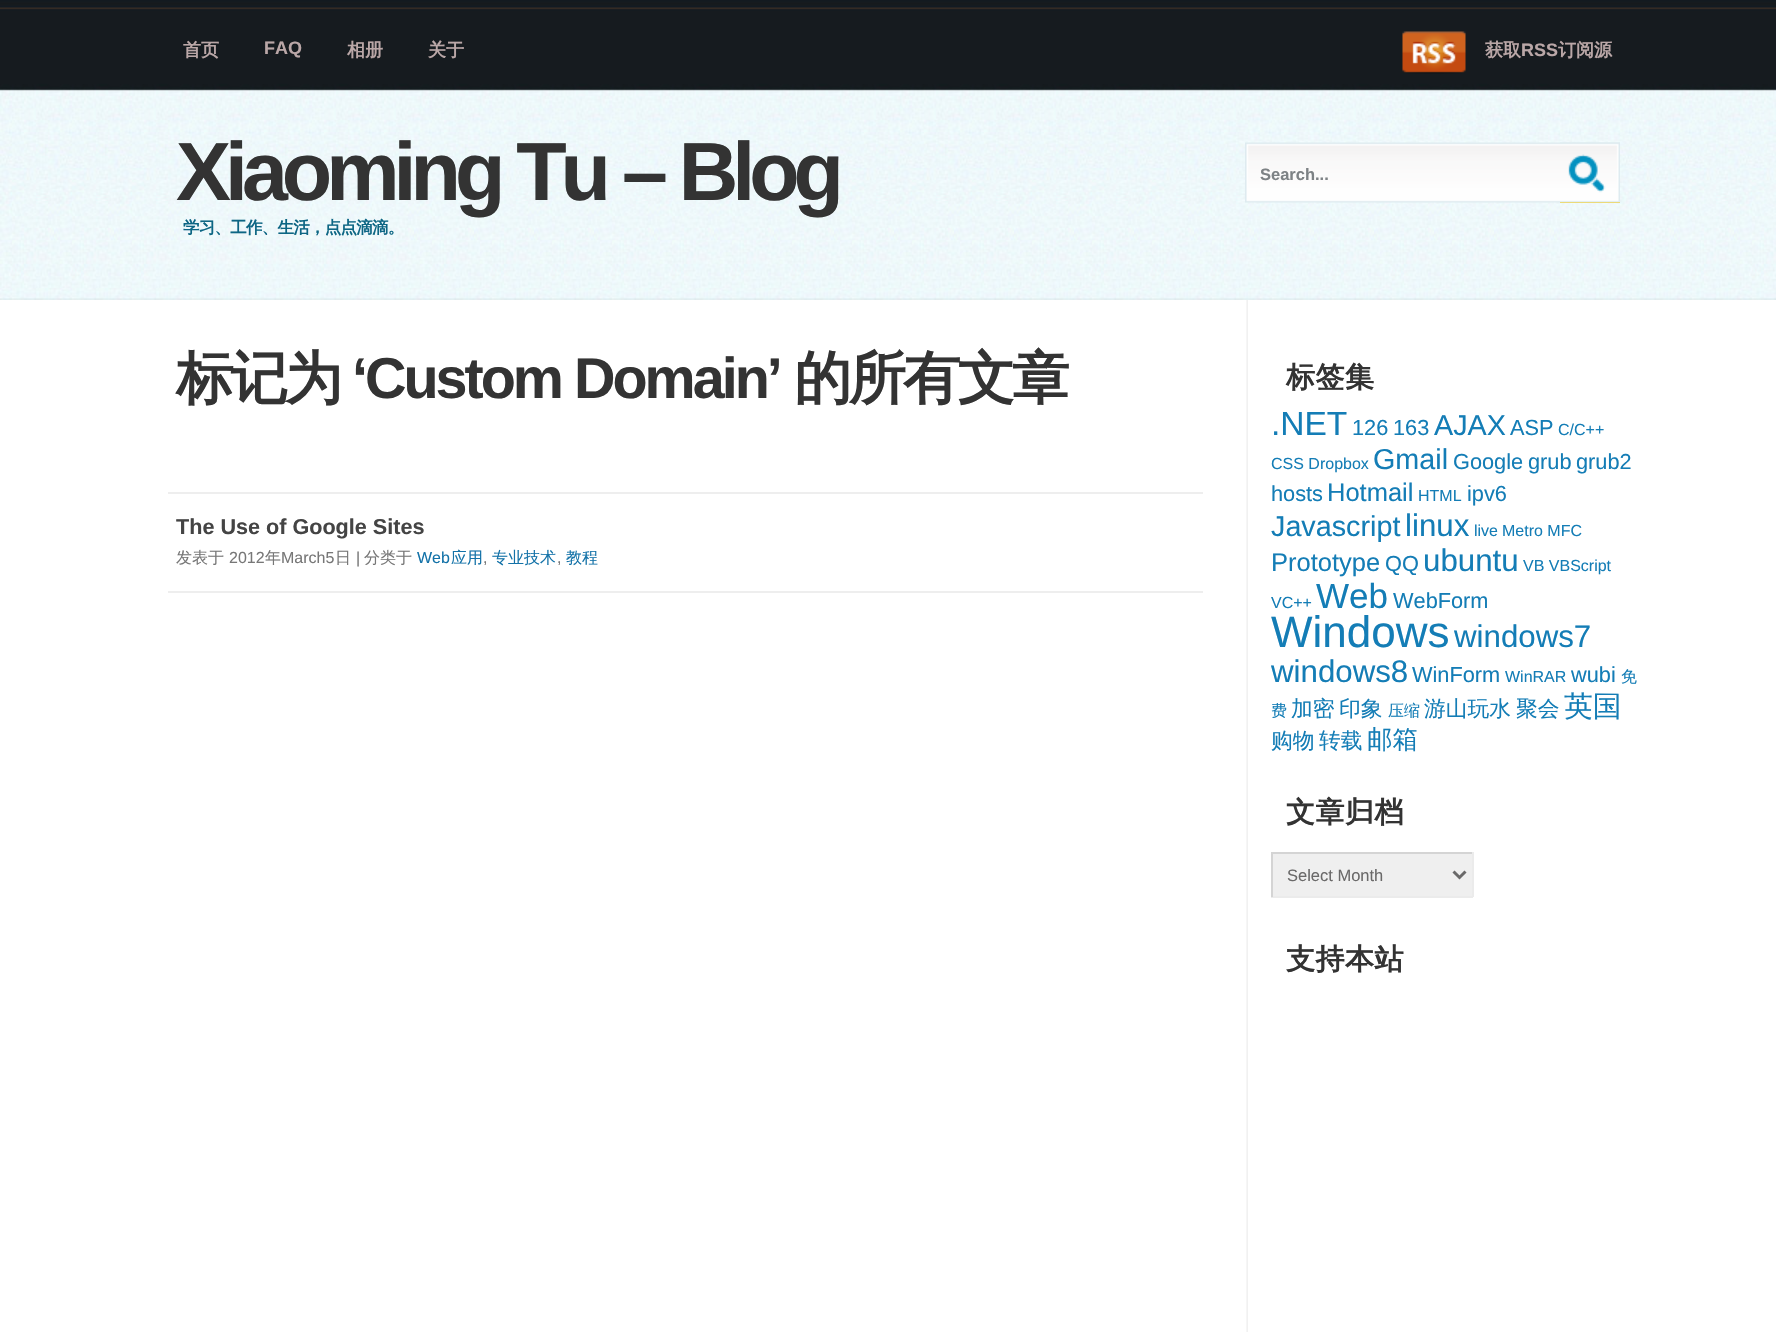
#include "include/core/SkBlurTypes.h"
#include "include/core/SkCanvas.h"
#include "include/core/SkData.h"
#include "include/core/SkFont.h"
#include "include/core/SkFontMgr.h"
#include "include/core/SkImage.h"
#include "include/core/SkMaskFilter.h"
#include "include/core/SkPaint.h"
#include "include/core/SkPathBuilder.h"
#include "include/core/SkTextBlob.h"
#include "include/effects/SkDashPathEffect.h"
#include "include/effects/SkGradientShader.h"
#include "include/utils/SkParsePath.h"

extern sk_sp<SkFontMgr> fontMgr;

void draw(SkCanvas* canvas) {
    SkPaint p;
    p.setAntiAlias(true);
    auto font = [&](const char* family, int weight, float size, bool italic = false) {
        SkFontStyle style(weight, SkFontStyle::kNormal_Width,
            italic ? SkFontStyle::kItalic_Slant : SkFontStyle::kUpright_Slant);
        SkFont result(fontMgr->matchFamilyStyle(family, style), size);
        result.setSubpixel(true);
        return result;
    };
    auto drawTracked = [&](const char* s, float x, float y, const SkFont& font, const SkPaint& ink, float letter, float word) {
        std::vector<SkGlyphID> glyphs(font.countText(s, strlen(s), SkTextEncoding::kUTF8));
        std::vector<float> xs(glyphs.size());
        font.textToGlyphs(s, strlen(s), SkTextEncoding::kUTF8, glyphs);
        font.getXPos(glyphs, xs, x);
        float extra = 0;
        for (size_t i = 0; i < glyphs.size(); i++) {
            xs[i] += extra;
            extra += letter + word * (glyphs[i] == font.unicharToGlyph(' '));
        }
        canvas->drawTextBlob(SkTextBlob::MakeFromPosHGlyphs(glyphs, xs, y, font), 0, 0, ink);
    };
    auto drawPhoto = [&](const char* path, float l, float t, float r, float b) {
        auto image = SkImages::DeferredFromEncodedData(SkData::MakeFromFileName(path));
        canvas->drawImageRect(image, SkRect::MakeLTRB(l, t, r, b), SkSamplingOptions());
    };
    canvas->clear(0xFFFFFFFF);
    drawPhoto("media/1.png", 0, 0, 1776, 300);
    auto font1 = font("WenQuanYi Zen Hei", 700, 18);
    p.setColor(0xFFBAA7A7);
    canvas->drawString("首页", 183, 56, font1, p);
    auto font2 = font("Liberation Sans", 700, 18);
    canvas->drawString("FAQ", 264, 54, font2, p);
    canvas->drawString("相册", 347, 56, font1, p);
    canvas->drawString("关于", 428, 56, font1, p);
    drawPhoto("media/2.png", 1402, 31, 1466, 74);
    canvas->drawString("获取", 1485, 56, font1, p);
    canvas->drawString("RSS", 1521, 56, font2, p);
    canvas->drawString("订阅源", 1558, 56, font1, p);
    auto font3 = font("Liberation Sans", 700, 82.5f);
    p.setColor(0xFF333333);
    drawTracked("Xiaoming Tu – Blog", 176, 200, font3, p, -6, 0);
    drawPhoto("media/3.png", 1245, 142, 1620, 203);
    auto font4 = font("Liberation Sans", 700, 16.5f);
    p.setColor(0xFF7D8285);
    canvas->drawString("Search...", 1260, 180, font4, p);
    p.setColor(0xFFFBC900);
    canvas->drawRect(SkRect::MakeLTRB(1560, 202, 1620, 203), p);
    drawPhoto("media/4.png", 1560, 142, 1620, 203);
    auto font5 = font("WenQuanYi Zen Hei", 700, 16.5f);
    p.setColor(0xFF0D6684);
    drawTracked("学习、工作、生活，点点滴滴。", 183, 233, font5, p, -0.75f, 0);
    drawPhoto("media/5.png", 1246, 300, 1248, 1332);
    auto font6 = font("WenQuanYi Zen Hei", 700, 57.5f);
    p.setColor(0xFF333333);
    drawTracked("标记为", 176, 398, font6, p, -3, 0);
    auto font7 = font("Liberation Sans", 700, 57.5f);
    drawTracked("‘Custom Domain’", 352, 398, font7, p, -3, 0);
    drawTracked("的所有文章", 794, 398, font6, p, -3, 0);
    p.setColor(0xFFEEEEEE);
    canvas->drawRect(SkRect::MakeLTRB(168, 492, 1203, 494), p);
    canvas->drawRect(SkRect::MakeLTRB(168, 591, 1203, 593), p);
    auto font8 = font("Liberation Sans", 700, 21.6f);
    p.setColor(0xFF444444);
    canvas->drawString("The Use of Google Sites", 176, 534, font8, p);
    auto font9 = font("WenQuanYi Zen Hei", 500, 16);
    p.setColor(0xFF777777);
    canvas->drawString("发表于", 176, 563, font9, p);
    auto font10 = font("Liberation Sans", 400, 16);
    canvas->drawString("2012", 229, 563, font10, p);
    canvas->drawString("年", 265, 563, font9, p);
    canvas->drawString("March5", 281, 563, font10, p);
    canvas->drawString("日", 335, 563, font9, p);
    canvas->drawString("|", 356, 563, font10, p);
    canvas->drawString("分类于", 364, 563, font9, p);
    p.setColor(0xFF1372A8);
    canvas->drawString("Web", 417, 563, font10, p);
    canvas->drawString("应用", 451, 563, font9, p);
    p.setColor(0xFF777777);
    canvas->drawString(",", 483, 563, font10, p);
    p.setColor(0xFF1372A8);
    canvas->drawString("专业技术", 492, 563, font9, p);
    p.setColor(0xFF777777);
    canvas->drawString(",", 557, 563, font10, p);
    p.setColor(0xFF1372A8);
    canvas->drawString("教程", 566, 563, font9, p);
    auto font11 = font("WenQuanYi Zen Hei", 700, 29);
    p.setColor(0xFF333333);
    drawTracked("标签集", 1286, 387, font11, p, 0.5f, 0);
    auto font12 = font("Liberation Sans", 400, 33.5f);
    p.setColor(0xFF147DB6);
    canvas->drawString(".NET", 1271, 435, font12, p);
    auto font13 = font("Liberation Sans", 400, 21.75f);
    canvas->drawString("126", 1352, 435, font13, p);
    canvas->drawString("163", 1393, 435, font13, p);
    auto font14 = font("Liberation Sans", 400, 28.75f);
    canvas->drawString("AJAX", 1434, 435, font14, p);
    canvas->drawString("ASP", 1510, 435, font13, p);
    canvas->drawString("C/C++", 1558, 435, font10, p);
    canvas->drawString("CSS Dropbox", 1271, 469, font10, p);
    canvas->drawString("Gmail", 1373, 469, font14, p);
    {
        const struct { const char* s; float x, y; } items[] = {
            {"Google", 1453, 469},
            {"grub", 1528, 469},
            {"grub2", 1576, 469},
            {"hosts", 1271, 501},
        };
        for (auto [s, x, y] : items) {
            canvas->drawString(s, x, y, font13, p);
        }
    }
    auto font15 = font("Liberation Sans", 400, 25.5f);
    canvas->drawString("Hotmail", 1327, 501, font15, p);
    canvas->drawString("HTML", 1418, 501, font10, p);
    canvas->drawString("ipv6", 1467, 501, font13, p);
    canvas->drawString("Javascript", 1271, 536, font14, p);
    auto font16 = font("Liberation Sans", 400, 31.25f);
    canvas->drawString("linux", 1405, 536, font16, p);
    canvas->drawString("live", 1474, 536, font10, p);
    canvas->drawString("Metro MFC", 1502, 536, font10, p);
    canvas->drawString("Prototype", 1271, 571, font15, p);
    canvas->drawString("QQ", 1385, 571, font13, p);
    canvas->drawString("ubuntu", 1423, 571, font16, p);
    canvas->drawString("VB VBScript", 1523, 571, font10, p);
    canvas->drawString("VC++", 1271, 608, font10, p);
    auto font17 = font("Liberation Sans", 400, 35);
    canvas->drawString("Web", 1316, 608, font17, p);
    canvas->drawString("WebForm", 1393, 608, font13, p);
    auto font18 = font("Liberation Sans", 400, 44);
    canvas->drawString("Windows", 1271, 647, font18, p);
    canvas->drawString("windows7", 1454, 647, font16, p);
    canvas->drawString("windows8", 1271, 682, font16, p);
    canvas->drawString("WinForm", 1412, 682, font13, p);
    canvas->drawString("WinRAR", 1505, 682, font10, p);
    canvas->drawString("wubi", 1571, 682, font13, p);
    canvas->drawString("免", 1621, 682, font9, p);
    canvas->drawString("费", 1271, 716, font9, p);
    auto font19 = font("WenQuanYi Zen Hei", 500, 21.75f);
    canvas->drawString("加密", 1291, 716, font19, p);
    canvas->drawString("印象", 1339, 716, font19, p);
    canvas->drawString("压缩", 1388, 716, font9, p);
    canvas->drawString("游山玩水", 1424, 716, font19, p);
    canvas->drawString("聚会", 1516, 716, font19, p);
    auto font20 = font("WenQuanYi Zen Hei", 500, 28.75f);
    canvas->drawString("英国", 1564, 716, font20, p);
    canvas->drawString("购物", 1271, 748, font19, p);
    canvas->drawString("转载", 1319, 748, font19, p);
    auto font21 = font("WenQuanYi Zen Hei", 500, 25.5f);
    canvas->drawString("邮箱", 1367, 748, font21, p);
    p.setColor(0xFF333333);
    drawTracked("文章归档", 1286, 822, font11, p, 0.5f, 0);
    {
        const struct { float l, t, r, b; SkColor color; } items[] = {
            {1273, 854, 1472, 896, 0xFFEFEFEF},
            {1271, 852, 1473, 854, 0xFFD4D4D4},
            {1472, 852, 1474, 897, 0xFFEBEBEB},
            {1271, 896, 1473, 898, 0xFFEBEBEB},
            {1271, 852, 1273, 897, 0xFFD4D4D4},
        };
        for (auto [l, t, r, b, color] : items) {
            p.setColor(color);
            canvas->drawRect(SkRect::MakeLTRB(l, t, r, b), p);
        }
    }
    p.setStyle(SkPaint::kStroke_Style);
    p.setStrokeWidth(3);
    p.setColor(0xFF6A6969);
    canvas->drawPath(SkPathBuilder().moveTo(1453.5f, 871.5f).lineTo(1459.5f, 877.5f).lineTo(1465.5f, 871.5f).detach(), p);
    auto font22 = font("Liberation Sans", 400, 16.5f);
    p.setStyle(SkPaint::kFill_Style);
    canvas->drawString("Select Month", 1287, 881, font22, p);
    p.setColor(0xFF333333);
    drawTracked("支持本站", 1286, 969, font11, p, 0.5f, 0);
}
